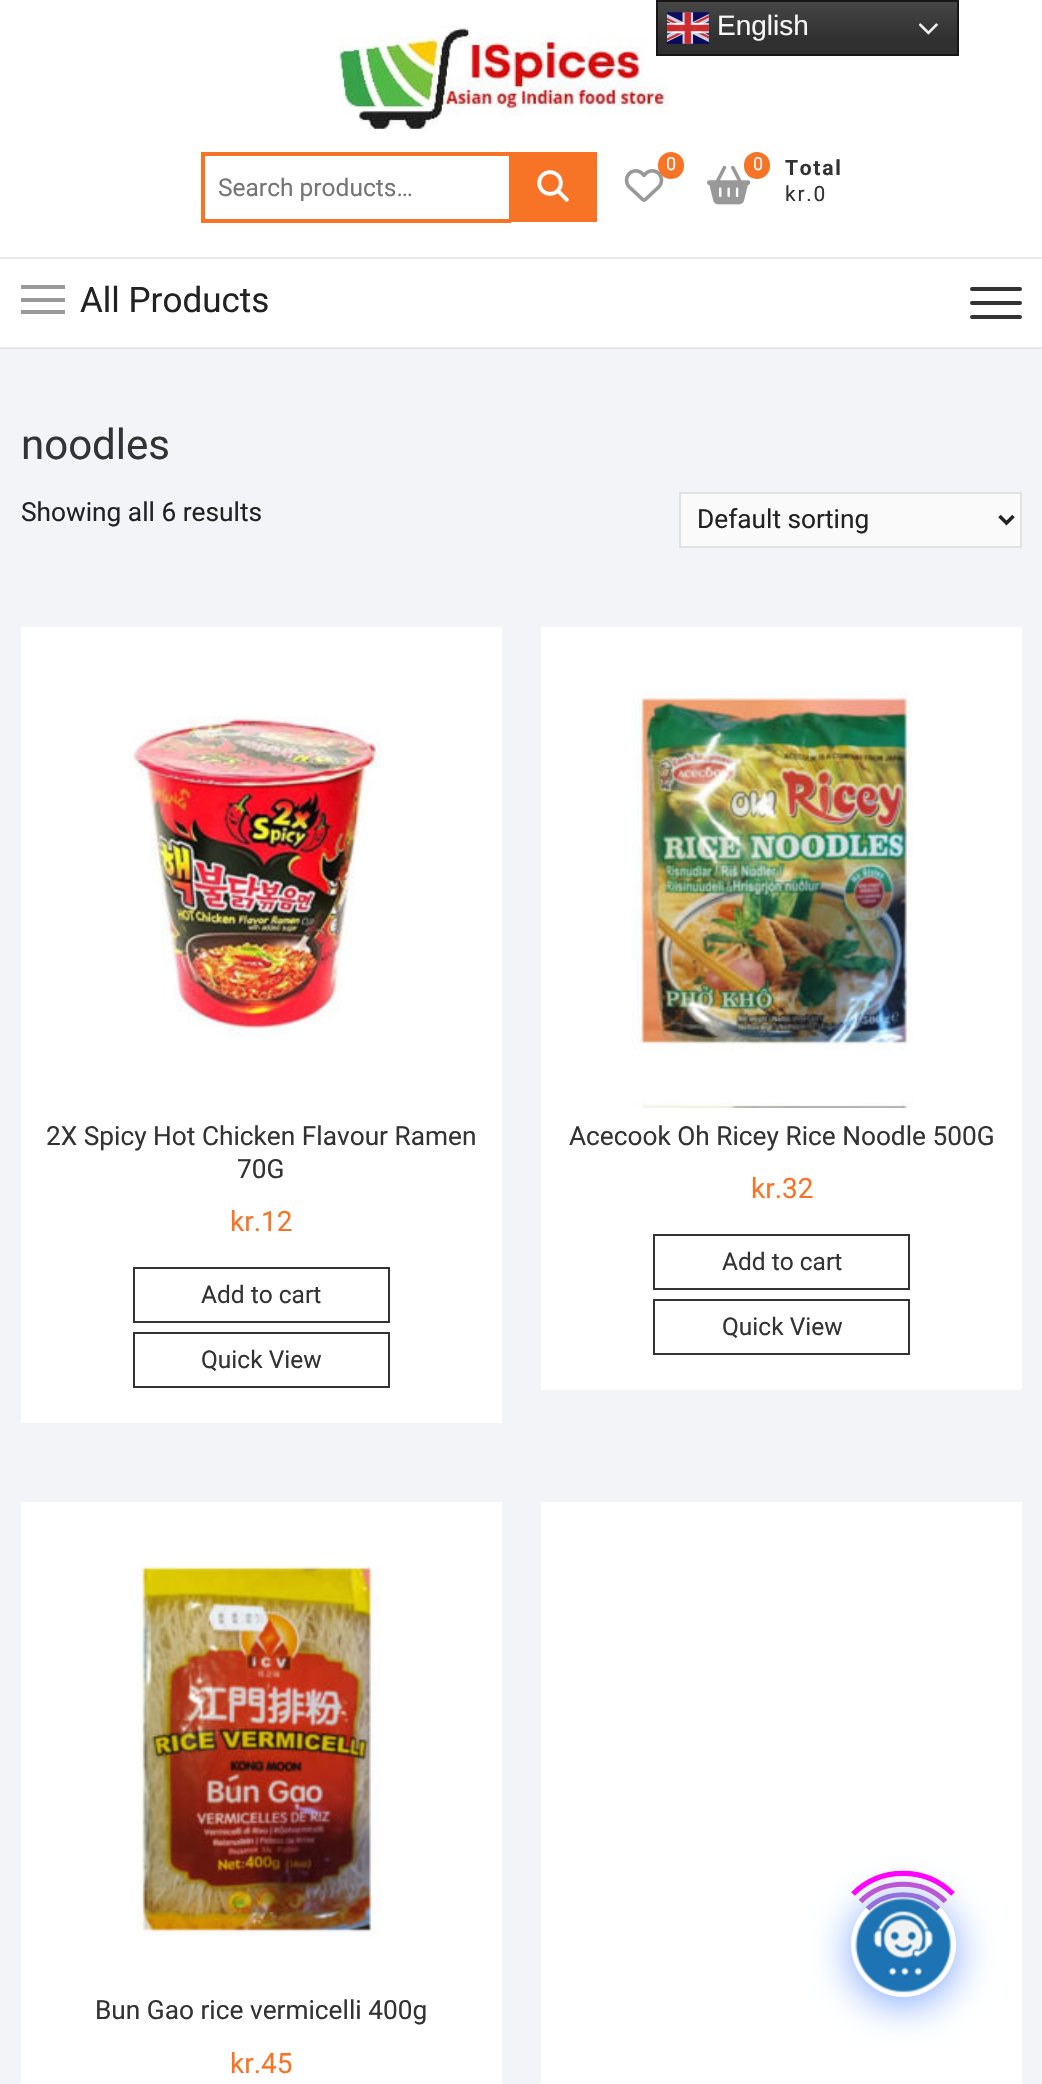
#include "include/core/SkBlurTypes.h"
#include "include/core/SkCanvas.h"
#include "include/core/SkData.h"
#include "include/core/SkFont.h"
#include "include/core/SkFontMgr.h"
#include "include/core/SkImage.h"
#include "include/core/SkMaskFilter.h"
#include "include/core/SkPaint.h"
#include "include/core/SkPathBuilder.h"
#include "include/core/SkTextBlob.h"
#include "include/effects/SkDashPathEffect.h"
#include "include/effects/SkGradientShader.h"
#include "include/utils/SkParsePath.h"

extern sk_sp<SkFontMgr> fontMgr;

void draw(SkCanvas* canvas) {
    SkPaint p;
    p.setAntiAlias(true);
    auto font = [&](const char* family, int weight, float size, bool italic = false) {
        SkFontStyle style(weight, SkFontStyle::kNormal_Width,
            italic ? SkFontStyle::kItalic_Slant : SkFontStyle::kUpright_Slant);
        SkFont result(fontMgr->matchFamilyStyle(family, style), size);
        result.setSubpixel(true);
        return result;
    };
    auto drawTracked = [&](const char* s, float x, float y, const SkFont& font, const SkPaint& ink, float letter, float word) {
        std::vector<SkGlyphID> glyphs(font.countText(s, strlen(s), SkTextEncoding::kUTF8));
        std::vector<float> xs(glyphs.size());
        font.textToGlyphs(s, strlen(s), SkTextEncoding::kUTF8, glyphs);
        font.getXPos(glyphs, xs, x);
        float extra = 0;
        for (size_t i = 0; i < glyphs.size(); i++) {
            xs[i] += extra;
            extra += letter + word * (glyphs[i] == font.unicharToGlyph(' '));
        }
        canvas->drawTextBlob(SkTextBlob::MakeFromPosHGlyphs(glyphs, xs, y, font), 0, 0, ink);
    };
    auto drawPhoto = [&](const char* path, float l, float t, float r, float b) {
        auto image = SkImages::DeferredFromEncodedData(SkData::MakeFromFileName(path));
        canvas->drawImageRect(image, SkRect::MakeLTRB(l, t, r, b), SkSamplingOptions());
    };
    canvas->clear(0xFFF3F4F8);
    p.setColor(0xFFFFFFFF);
    canvas->drawRect(SkRect::MakeLTRB(0, 0, 1042, 347), p);
    drawPhoto("media/3.png", 338, 26, 669, 132);
    {
        const SkColor colors[] = {0xFF474747, 0xFF303030};
        const float stops[] = {0, 0.7f};
        const SkPoint ends[] = {{808, 0}, {808, 56}};
        p.setShader(SkGradientShader::MakeLinear(ends, colors, stops, 2, SkTileMode::kClamp));
        p.setAlpha(255);
    }
    canvas->drawRect(SkRect::MakeLTRB(658, 2, 957, 54), p);
    p.setStyle(SkPaint::kStroke_Style);
    p.setStrokeWidth(2);
    p.setShader(nullptr);
    p.setColor(0xFF161616);
    canvas->drawRect(SkRect::MakeLTRB(657, 1, 958, 55), p);
    drawPhoto("media/1.png", 667, 12, 709, 44);
    auto font1 = font("Liberation Sans", 400, 28);
    p.setStyle(SkPaint::kFill_Style);
    p.setColor(0xFFF7F7F7);
    canvas->drawString("English", 717, 35, font1, p);
    drawPhoto("media/2.png", 919, 23, 938, 35);
    {
        const struct { float l, t, r, b; SkColor color; } items[] = {
            {0, 348, 1042, 349, 0xFFE0E0E4},
            {0, 347, 1042, 348, 0xFFEBEBEB},
            {201, 152, 511, 156, 0xFFF77426},
            {201, 219, 511, 223, 0xFFF77426},
            {201, 152, 205, 222, 0xFFF77426},
        };
        for (auto [l, t, r, b, color] : items) {
            p.setColor(color);
            canvas->drawRect(SkRect::MakeLTRB(l, t, r, b), p);
        }
    }
    auto font2 = font("Roboto", 400, 24.5f);
    p.setColor(0xFF757575);
    canvas->drawString("Search products…", 218, 196, font2, p);
    p.setColor(0xFFF77426);
    canvas->drawRect(SkRect::MakeLTRB(509, 152, 597, 222), p);
    drawPhoto("media/4.png", 537, 170, 569, 202);
    drawPhoto("media/5.png", 624, 169, 664, 202);
    canvas->drawRoundRect(SkRect::MakeLTRB(658, 152, 684, 179), 13, 13, p);
    auto font3 = font("Roboto", 400, 18);
    p.setColor(0xFFFFFFFF);
    canvas->drawString("0", 666, 170, font3, p);
    drawPhoto("media/6.png", 707, 165, 751, 205);
    p.setColor(0xFFF77426);
    canvas->drawRoundRect(SkRect::MakeLTRB(744, 152, 770, 179), 13, 13, p);
    p.setColor(0xFFFFFFFF);
    canvas->drawString("0", 753, 170, font3, p);
    auto font4 = font("Roboto", 700, 21);
    p.setColor(0xFF333333);
    drawTracked("Total", 785, 175, font4, p, 1.75f, 0);
    auto font5 = font("Roboto", 400, 21);
    drawTracked("kr.0", 785, 201, font5, p, 1.75f, 0);
    {
        const struct { float l, t, r, b; SkColor color; } items[] = {
            {0, 257, 1042, 259, 0xFFEBEBEB},
            {21, 298, 65, 302, 0xFF999999},
            {21, 285, 65, 289, 0xFF999999},
            {21, 310, 65, 314, 0xFF999999},
        };
        for (auto [l, t, r, b, color] : items) {
            p.setColor(color);
            canvas->drawRect(SkRect::MakeLTRB(l, t, r, b), p);
        }
    }
    auto font6 = font("Roboto", 400, 35);
    p.setColor(0xFF222222);
    canvas->drawString("All Products", 80, 312, font6, p);
    p.setColor(0xFF333333);
    canvas->drawRoundRect(SkRect::MakeLTRB(970, 301, 1022, 305), 2, 2, p);
    canvas->drawRoundRect(SkRect::MakeLTRB(970, 287, 1022, 291), 2, 2, p);
    canvas->drawRoundRect(SkRect::MakeLTRB(970, 315, 1022, 319), 2, 2, p);
    auto font7 = font("Roboto", 400, 42);
    canvas->drawString("noodles", 21, 459, font7, p);
    auto font8 = font("Roboto", 400, 26.25f);
    p.setColor(0xFF222222);
    canvas->drawString("Showing all 6 results", 21, 521, font8, p);
    p.setColor(0xFFFAFAFA);
    canvas->drawRect(SkRect::MakeLTRB(680, 493, 1021, 547), p);
    p.setStyle(SkPaint::kStroke_Style);
    p.setColor(0xFFE1E1E1);
    canvas->drawRect(SkRect::MakeLTRB(680, 493, 1021, 547), p);
    p.setStrokeWidth(3.5f);
    p.setColor(0xFF222222);
    canvas->drawPath(SkPathBuilder().moveTo(999.5f, 516).lineTo(1006.5f, 523).lineTo(1013.5f, 516).detach(), p);
    p.setStyle(SkPaint::kFill_Style);
    canvas->drawString("Default sorting", 697, 528, font8, p);
    p.setColor(0xFFFFFFFF);
    canvas->drawRect(SkRect::MakeLTRB(21, 627, 502, 1423), p);
    drawPhoto("media/7.png", 129, 716, 381, 1037);
    p.setColor(0xFF333333);
    canvas->drawString("2X Spicy Hot Chicken Flavour Ramen", 46, 1145, font8, p);
    canvas->drawString("70G", 237, 1178, font8, p);
    auto font9 = font("Roboto", 400, 28);
    p.setColor(0xFFF77426);
    canvas->drawString("kr.12", 230, 1231, font9, p);
    p.setStyle(SkPaint::kStroke_Style);
    p.setStrokeWidth(2);
    p.setColor(0xFF333333);
    canvas->drawRect(SkRect::MakeLTRB(134, 1268, 389, 1322), p);
    p.setStyle(SkPaint::kFill_Style);
    canvas->drawString("Add to cart", 201, 1303, font2, p);
    p.setStyle(SkPaint::kStroke_Style);
    canvas->drawRect(SkRect::MakeLTRB(134, 1333, 389, 1387), p);
    p.setStyle(SkPaint::kFill_Style);
    canvas->drawString("Quick View", 201, 1368, font2, p);
    p.setColor(0xFFFFFFFF);
    canvas->drawRect(SkRect::MakeLTRB(541, 627, 1022, 1390), p);
    drawPhoto("media/8.png", 631, 691, 913, 1108);
    p.setColor(0xFF333333);
    canvas->drawString("Acecook Oh Ricey Rice Noodle 500G", 569, 1145, font8, p);
    p.setColor(0xFFF77426);
    canvas->drawString("kr.32", 751, 1198, font9, p);
    p.setStyle(SkPaint::kStroke_Style);
    p.setColor(0xFF333333);
    canvas->drawRect(SkRect::MakeLTRB(654, 1235, 909, 1289), p);
    p.setStyle(SkPaint::kFill_Style);
    canvas->drawString("Add to cart", 722, 1270, font2, p);
    p.setStyle(SkPaint::kStroke_Style);
    canvas->drawRect(SkRect::MakeLTRB(654, 1300, 909, 1354), p);
    p.setStyle(SkPaint::kFill_Style);
    canvas->drawString("Quick View", 722, 1335, font2, p);
    p.setColor(0xFFFFFFFF);
    canvas->drawRect(SkRect::MakeLTRB(21, 1502, 502, 2084), p);
    drawPhoto("media/9.png", 137, 1565, 381, 1937);
    p.setColor(0xFF333333);
    canvas->drawString("Bun Gao rice vermicelli 400g", 95, 2019, font8, p);
    p.setColor(0xFFF77426);
    canvas->drawString("kr.45", 230, 2073, font9, p);
    p.setColor(0xFFFFFFFF);
    canvas->drawRect(SkRect::MakeLTRB(541, 1502, 1022, 2084), p);
    p.setColor(0x80004DFF);
    p.setMaskFilter(SkMaskFilter::MakeBlur(kNormal_SkBlurStyle, 21));
    canvas->drawRoundRect(SkRect::MakeLTRB(851, 1899, 956, 2004), 52.5f, 52.5f, p);
    p.setMaskFilter(nullptr);
    p.setColor(0xFFFFFFFF);
    canvas->drawCircle(903.5f, 1944.5f, 52.5f, p);
    drawPhoto("media/10.png", 855, 1897, 951, 1993);
    p.setStyle(SkPaint::kStroke_Style);
    p.setStrokeWidth(5.2f);
    p.setColor(0xFC9370DB);
    canvas->drawPath(SkPathBuilder().moveTo(867.5f, 1909).cubicTo(887, 1890, 919, 1890, 938.5f, 1909).detach(), p);
    p.setColor(0xFCBA55D3);
    canvas->drawPath(SkPathBuilder().moveTo(860.5f, 1901.5f).cubicTo(883.5f, 1878.5f, 922.5f, 1878.5f, 945.5f, 1901.5f).detach(), p);
    p.setColor(0xFCFF00FF);
    canvas->drawPath(SkPathBuilder().moveTo(853, 1894).cubicTo(880.5f, 1866.5f, 925.5f, 1866.5f, 953, 1894).detach(), p);
}
